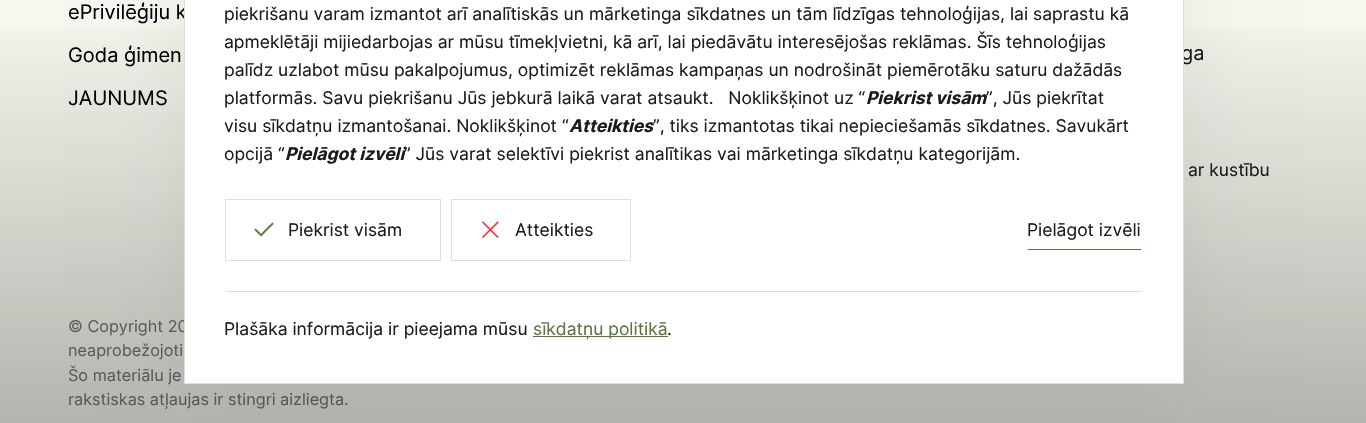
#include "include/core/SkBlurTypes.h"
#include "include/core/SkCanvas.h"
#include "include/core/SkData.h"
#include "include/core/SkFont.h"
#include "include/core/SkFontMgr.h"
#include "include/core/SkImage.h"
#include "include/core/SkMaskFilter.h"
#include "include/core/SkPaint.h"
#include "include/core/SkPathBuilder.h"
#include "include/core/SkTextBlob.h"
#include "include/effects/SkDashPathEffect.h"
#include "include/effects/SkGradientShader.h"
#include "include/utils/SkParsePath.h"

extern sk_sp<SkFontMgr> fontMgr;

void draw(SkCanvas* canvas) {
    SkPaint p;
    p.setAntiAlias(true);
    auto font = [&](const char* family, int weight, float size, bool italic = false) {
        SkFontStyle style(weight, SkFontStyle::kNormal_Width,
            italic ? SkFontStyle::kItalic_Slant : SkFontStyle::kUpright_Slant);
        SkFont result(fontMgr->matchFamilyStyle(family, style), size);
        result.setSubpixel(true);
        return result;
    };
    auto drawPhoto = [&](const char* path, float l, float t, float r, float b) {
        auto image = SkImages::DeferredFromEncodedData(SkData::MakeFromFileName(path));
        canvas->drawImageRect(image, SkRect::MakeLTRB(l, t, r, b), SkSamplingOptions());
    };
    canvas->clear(0xFFF7F7EF);
    auto font1 = font("Inter", 400, 20);
    p.setColor(0xFF000000);
    {
        const struct { const char* s; float x, y; } items[] = {
            {"ePrivilēģiju k", 68, 19},
            {"Goda ģimen", 68, 62},
            {"JAUNUMS", 68, 105},
        };
        for (auto [s, x, y] : items) {
            canvas->drawString(s, x, y, font1, p);
        }
    }
    p.setColor(0xFF1B1B1B);
    canvas->drawString("ga", 1181, 60, font1, p);
    auto font2 = font("Inter", 400, 17.5f);
    canvas->drawString("ar kustību", 1188, 176, font2, p);
    auto font3 = font("Inter", 400, 16.25f);
    p.setColor(0xFF707070);
    {
        const struct { const char* s; float x, y; } items[] = {
            {"© Copyright 20", 68, 332},
            {"neaprobežojoti", 68, 356},
            {"Šo materiālu je", 68, 381},
            {"rakstiskas atļaujas ir stingri aizliegta.", 68, 405},
        };
        for (auto [s, x, y] : items) {
            canvas->drawString(s, x, y, font3, p);
        }
    }
    {
        const SkColor colors[] = {0x001B1B1B, 0x4D1B1B1B};
        const float stops[] = {0, 1};
        const SkPoint ends[] = {{683, -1.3f}, {683, 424}};
        p.setShader(SkGradientShader::MakeLinear(ends, colors, stops, 2, SkTileMode::kClamp));
        p.setAlpha(255);
    }
    canvas->drawRect(SkRect::MakeLTRB(0, 29, 1366, 423), p);
    p.setShader(nullptr);
    p.setColor(0x0F000000);
    p.setMaskFilter(SkMaskFilter::MakeBlur(kNormal_SkBlurStyle, 40));
    canvas->drawRect(SkRect::MakeLTRB(184, -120, 1184, 384), p);
    p.setMaskFilter(nullptr);
    p.setColor(0xFFFFFFFF);
    canvas->drawRect(SkRect::MakeLTRB(184.5f, -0.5f, 1183.5f, 383.5f), p);
    p.setStyle(SkPaint::kStroke_Style);
    p.setStrokeWidth(1);
    p.setColor(0xFFDDDDDD);
    canvas->drawRect(SkRect::MakeLTRB(184.5f, -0.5f, 1183.5f, 383.5f), p);
    p.setStyle(SkPaint::kFill_Style);
    p.setColor(0xFF1B1B1B);
    {
        const struct { const char* s; float x, y; } items[] = {
            {"piekrišanu varam izmantot arī analītiskās un mārketinga sīkdatnes un tām līdzīgas tehnoloģijas, lai saprastu kā", 224, 20},
            {"apmeklētāji mijiedarbojas ar mūsu tīmekļvietni, kā arī, lai piedāvātu interesējošas reklāmas. Šīs tehnoloģijas", 224, 48},
            {"palīdz uzlabot mūsu pakalpojumus, optimizēt reklāmas kampaņas un nodrošināt piemērotāku saturu dažādās", 224, 76},
            {"platformās. Savu piekrišanu Jūs jebkurā laikā varat atsaukt.   Noklikšķinot uz “", 224, 104},
        };
        for (auto [s, x, y] : items) {
            canvas->drawString(s, x, y, font2, p);
        }
    }
    auto font4 = font("Inter", 700, 17.5f, true);
    canvas->drawString("Piekrist visām", 866, 104, font4, p);
    canvas->drawString("”, Jūs piekrītat", 986, 104, font2, p);
    canvas->drawString("visu sīkdatņu izmantošanai. Noklikšķinot “", 224, 132, font2, p);
    canvas->drawString("Atteikties", 569, 132, font4, p);
    canvas->drawString("”, tiks izmantotas tikai nepieciešamās sīkdatnes. Savukārt", 653, 132, font2, p);
    canvas->drawString("opcijā “", 224, 160, font2, p);
    canvas->drawString("Pielāgot izvēli", 285, 160, font4, p);
    canvas->drawString("” Jūs varat selektīvi piekrist analītikas vai mārketinga sīkdatņu kategorijām.", 404, 160, font2, p);
    p.setStyle(SkPaint::kStroke_Style);
    p.setColor(0xFFDDDDDD);
    canvas->drawRect(SkRect::MakeLTRB(225.5f, 199.5f, 440.5f, 260.5f), p);
    drawPhoto("media/1.png", 254, 222, 274, 237);
    p.setStyle(SkPaint::kFill_Style);
    p.setColor(0xFF1B1B1B);
    canvas->drawString("Piekrist visām", 288, 236, font2, p);
    p.setStyle(SkPaint::kStroke_Style);
    p.setColor(0xFFDDDDDD);
    canvas->drawRect(SkRect::MakeLTRB(451.5f, 199.5f, 630.5f, 260.5f), p);
    drawPhoto("media/2.png", 482, 221, 499, 238);
    p.setStyle(SkPaint::kFill_Style);
    p.setColor(0xFF1B1B1B);
    canvas->drawString("Atteikties", 515, 236, font2, p);
    p.setColor(0xFF57743C);
    canvas->drawRect(SkRect::MakeLTRB(1028, 249, 1141, 250), p);
    p.setColor(0xFF1B1B1B);
    canvas->drawString("Pielāgot izvēli", 1027, 236, font2, p);
    p.setColor(0xFFDDDDDD);
    canvas->drawRect(SkRect::MakeLTRB(225, 291, 1143, 292), p);
    p.setColor(0xFF1B1B1B);
    canvas->drawString("Plašāka informācija ir pieejama mūsu", 224, 335, font2, p);
    p.setColor(0xFF57743C);
    canvas->drawRect(SkRect::MakeLTRB(533, 336, 668, 337), p);
    canvas->drawString("sīkdatņu politikā", 533, 335, font2, p);
    p.setColor(0xFF1B1B1B);
    canvas->drawString(".", 667, 335, font2, p);
}
